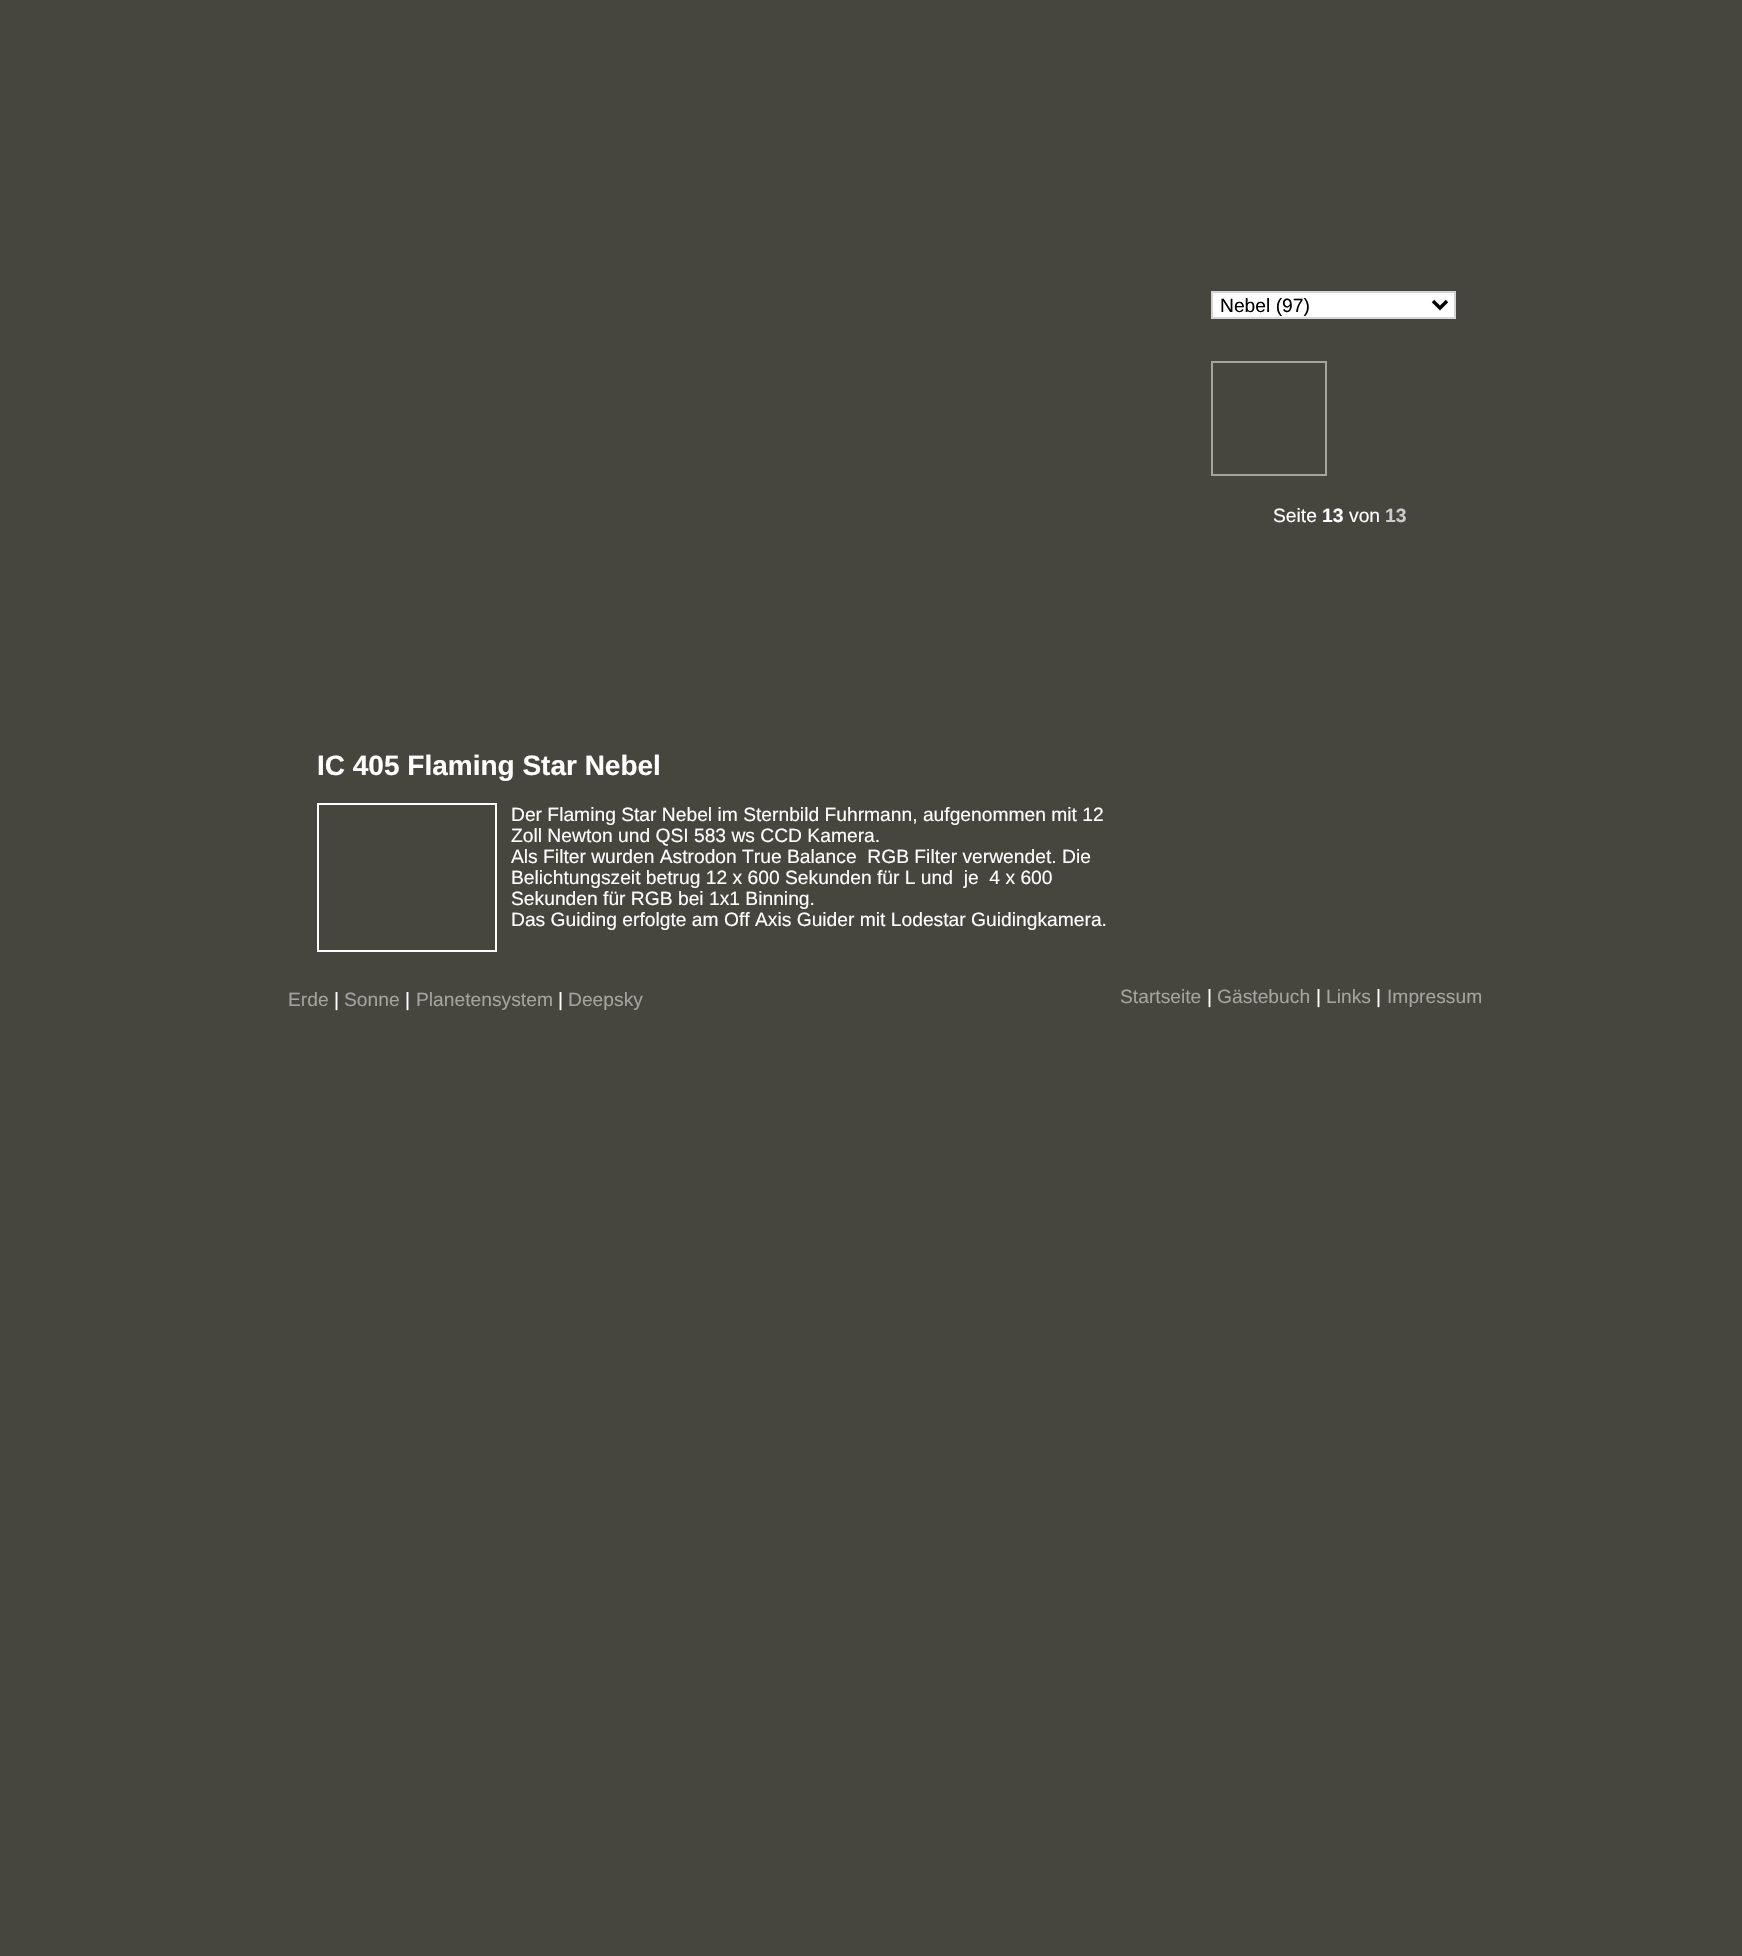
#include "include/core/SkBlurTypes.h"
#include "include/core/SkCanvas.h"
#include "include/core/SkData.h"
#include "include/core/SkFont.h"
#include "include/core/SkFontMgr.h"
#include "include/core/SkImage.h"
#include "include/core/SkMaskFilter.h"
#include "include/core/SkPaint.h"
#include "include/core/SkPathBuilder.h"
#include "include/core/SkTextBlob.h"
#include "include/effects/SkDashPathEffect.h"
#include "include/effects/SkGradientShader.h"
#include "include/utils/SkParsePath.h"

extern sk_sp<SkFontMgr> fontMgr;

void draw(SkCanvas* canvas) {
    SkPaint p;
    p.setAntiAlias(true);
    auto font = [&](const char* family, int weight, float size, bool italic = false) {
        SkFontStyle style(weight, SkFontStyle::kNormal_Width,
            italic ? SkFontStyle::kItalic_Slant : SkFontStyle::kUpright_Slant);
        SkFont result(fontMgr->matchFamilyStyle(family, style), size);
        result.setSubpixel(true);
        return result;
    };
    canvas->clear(0xFF46463F);
    p.setColor(0xFFFFFFFF);
    canvas->drawRect(SkRect::MakeLTRB(1212, 292, 1455, 318), p);
    p.setStyle(SkPaint::kStroke_Style);
    p.setStrokeWidth(2);
    p.setColor(0xFFD5D5D5);
    canvas->drawRect(SkRect::MakeLTRB(1212, 292, 1455, 318), p);
    p.setStrokeWidth(3.5f);
    p.setColor(0xFF000000);
    canvas->drawPath(SkPathBuilder().moveTo(1433, 301).lineTo(1440, 308).lineTo(1447, 301).detach(), p);
    auto font1 = font("Liberation Sans", 400, 19.25f);
    p.setStyle(SkPaint::kFill_Style);
    canvas->drawString("Nebel (97)", 1220, 312, font1, p);
    p.setStyle(SkPaint::kStroke_Style);
    p.setStrokeWidth(2);
    p.setColor(0xFFA3A39F);
    canvas->drawRect(SkRect::MakeLTRB(1212, 362, 1326, 475), p);
    p.setStyle(SkPaint::kFill_Style);
    p.setColor(0xFFFFFFFF);
    canvas->drawString("Seite", 1273, 522, font1, p);
    auto font2 = font("Liberation Sans", 700, 19.25f);
    canvas->drawString("13", 1322, 522, font2, p);
    canvas->drawString("von", 1349, 522, font1, p);
    p.setColor(0xFFCCCCCC);
    canvas->drawString("13", 1385, 522, font2, p);
    auto font3 = font("Liberation Sans", 700, 28);
    p.setColor(0xFFFFFFFF);
    canvas->drawString("IC 405 Flaming Star Nebel", 317, 775, font3, p);
    p.setStyle(SkPaint::kStroke_Style);
    canvas->drawRect(SkRect::MakeLTRB(318, 804, 496, 951), p);
    p.setStyle(SkPaint::kFill_Style);
    {
        const struct { const char* s; float x, y; } items[] = {
            {"Der Flaming Star Nebel im Sternbild Fuhrmann, aufgenommen mit 12", 511, 821},
            {"Zoll Newton und QSI 583 ws CCD Kamera.", 511, 842},
            {"Als Filter wurden Astrodon True Balance  RGB Filter verwendet. Die", 511, 863},
            {"Belichtungszeit betrug 12 x 600 Sekunden für L und  je  4 x 600", 511, 884},
            {"Sekunden für RGB bei 1x1 Binning.", 511, 905},
            {"Das Guiding erfolgte am Off Axis Guider mit Lodestar Guidingkamera.", 511, 926},
        };
        for (auto [s, x, y] : items) {
            canvas->drawString(s, x, y, font1, p);
        }
    }
    p.setColor(0xFFA3A39F);
    canvas->drawString("Erde", 288, 1006, font1, p);
    p.setColor(0xFFFFFFFF);
    canvas->drawString("|", 334, 1006, font1, p);
    p.setColor(0xFFA3A39F);
    canvas->drawString("Sonne", 344, 1006, font1, p);
    p.setColor(0xFFFFFFFF);
    canvas->drawString("|", 405, 1006, font1, p);
    p.setColor(0xFFA3A39F);
    canvas->drawString("Planetensystem", 416, 1006, font1, p);
    p.setColor(0xFFFFFFFF);
    canvas->drawString("|", 558, 1006, font1, p);
    p.setColor(0xFFA3A39F);
    canvas->drawString("Deepsky", 568, 1006, font1, p);
    canvas->drawString("Startseite", 1120, 1003, font1, p);
    p.setColor(0xFFFFFFFF);
    canvas->drawString("|", 1207, 1003, font1, p);
    p.setColor(0xFFA3A39F);
    canvas->drawString("Gästebuch", 1217, 1003, font1, p);
    p.setColor(0xFFFFFFFF);
    canvas->drawString("|", 1316, 1003, font1, p);
    p.setColor(0xFFA3A39F);
    canvas->drawString("Links", 1326, 1003, font1, p);
    p.setColor(0xFFFFFFFF);
    canvas->drawString("|", 1376, 1003, font1, p);
    p.setColor(0xFFA3A39F);
    canvas->drawString("Impressum", 1387, 1003, font1, p);
}
